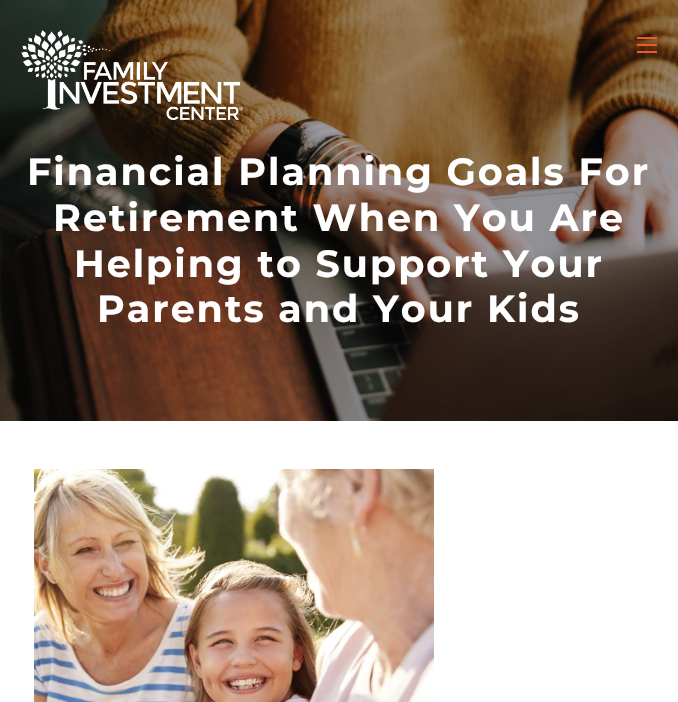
#include "include/core/SkBlurTypes.h"
#include "include/core/SkCanvas.h"
#include "include/core/SkData.h"
#include "include/core/SkFont.h"
#include "include/core/SkFontMgr.h"
#include "include/core/SkImage.h"
#include "include/core/SkMaskFilter.h"
#include "include/core/SkPaint.h"
#include "include/core/SkPathBuilder.h"
#include "include/core/SkTextBlob.h"
#include "include/effects/SkDashPathEffect.h"
#include "include/effects/SkGradientShader.h"
#include "include/utils/SkParsePath.h"

extern sk_sp<SkFontMgr> fontMgr;

void draw(SkCanvas* canvas) {
    SkPaint p;
    p.setAntiAlias(true);
    auto font = [&](const char* family, int weight, float size, bool italic = false) {
        SkFontStyle style(weight, SkFontStyle::kNormal_Width,
            italic ? SkFontStyle::kItalic_Slant : SkFontStyle::kUpright_Slant);
        SkFont result(fontMgr->matchFamilyStyle(family, style), size);
        result.setSubpixel(true);
        return result;
    };
    auto drawTracked = [&](const char* s, float x, float y, const SkFont& font, const SkPaint& ink, float letter, float word) {
        std::vector<SkGlyphID> glyphs(font.countText(s, strlen(s), SkTextEncoding::kUTF8));
        std::vector<float> xs(glyphs.size());
        font.textToGlyphs(s, strlen(s), SkTextEncoding::kUTF8, glyphs);
        font.getXPos(glyphs, xs, x);
        float extra = 0;
        for (size_t i = 0; i < glyphs.size(); i++) {
            xs[i] += extra;
            extra += letter + word * (glyphs[i] == font.unicharToGlyph(' '));
        }
        canvas->drawTextBlob(SkTextBlob::MakeFromPosHGlyphs(glyphs, xs, y, font), 0, 0, ink);
    };
    auto drawPhoto = [&](const char* path, float l, float t, float r, float b) {
        auto image = SkImages::DeferredFromEncodedData(SkData::MakeFromFileName(path));
        canvas->drawImageRect(image, SkRect::MakeLTRB(l, t, r, b), SkSamplingOptions());
    };
    canvas->clear(0xFFFFFFFF);
    drawPhoto("media/2.png", 0, 0, 678, 421);
    drawPhoto("media/1.png", 21, 30, 243, 120);
    {
        const struct { float l, t, r, b; SkColor color; } items[] = {
            {637, 51, 657, 53, 0xFFF05A28},
            {637, 44, 657, 46, 0xFFF05A28},
            {637, 37, 657, 39, 0xFFF05A28},
        };
        for (auto [l, t, r, b, color] : items) {
            p.setColor(color);
            canvas->drawRect(SkRect::MakeLTRB(l, t, r, b), p);
        }
    }
    auto font1 = font("Montserrat", 100, 38);
    p.setColor(0xFFFFFFFF);
    {
        const struct { const char* s; float x, y; } items[] = {
            {"Financial Planning Goals For", 27, 185},
            {"Retirement When You Are", 53, 231},
            {"Helping to Support Your", 74, 277},
            {"Parents and Your Kids", 97, 322},
        };
        for (auto [s, x, y] : items) {
            drawTracked(s, x, y, font1, p, 2, 0);
        }
    }
    drawPhoto("media/3.png", 34, 469, 434, 702);
}
